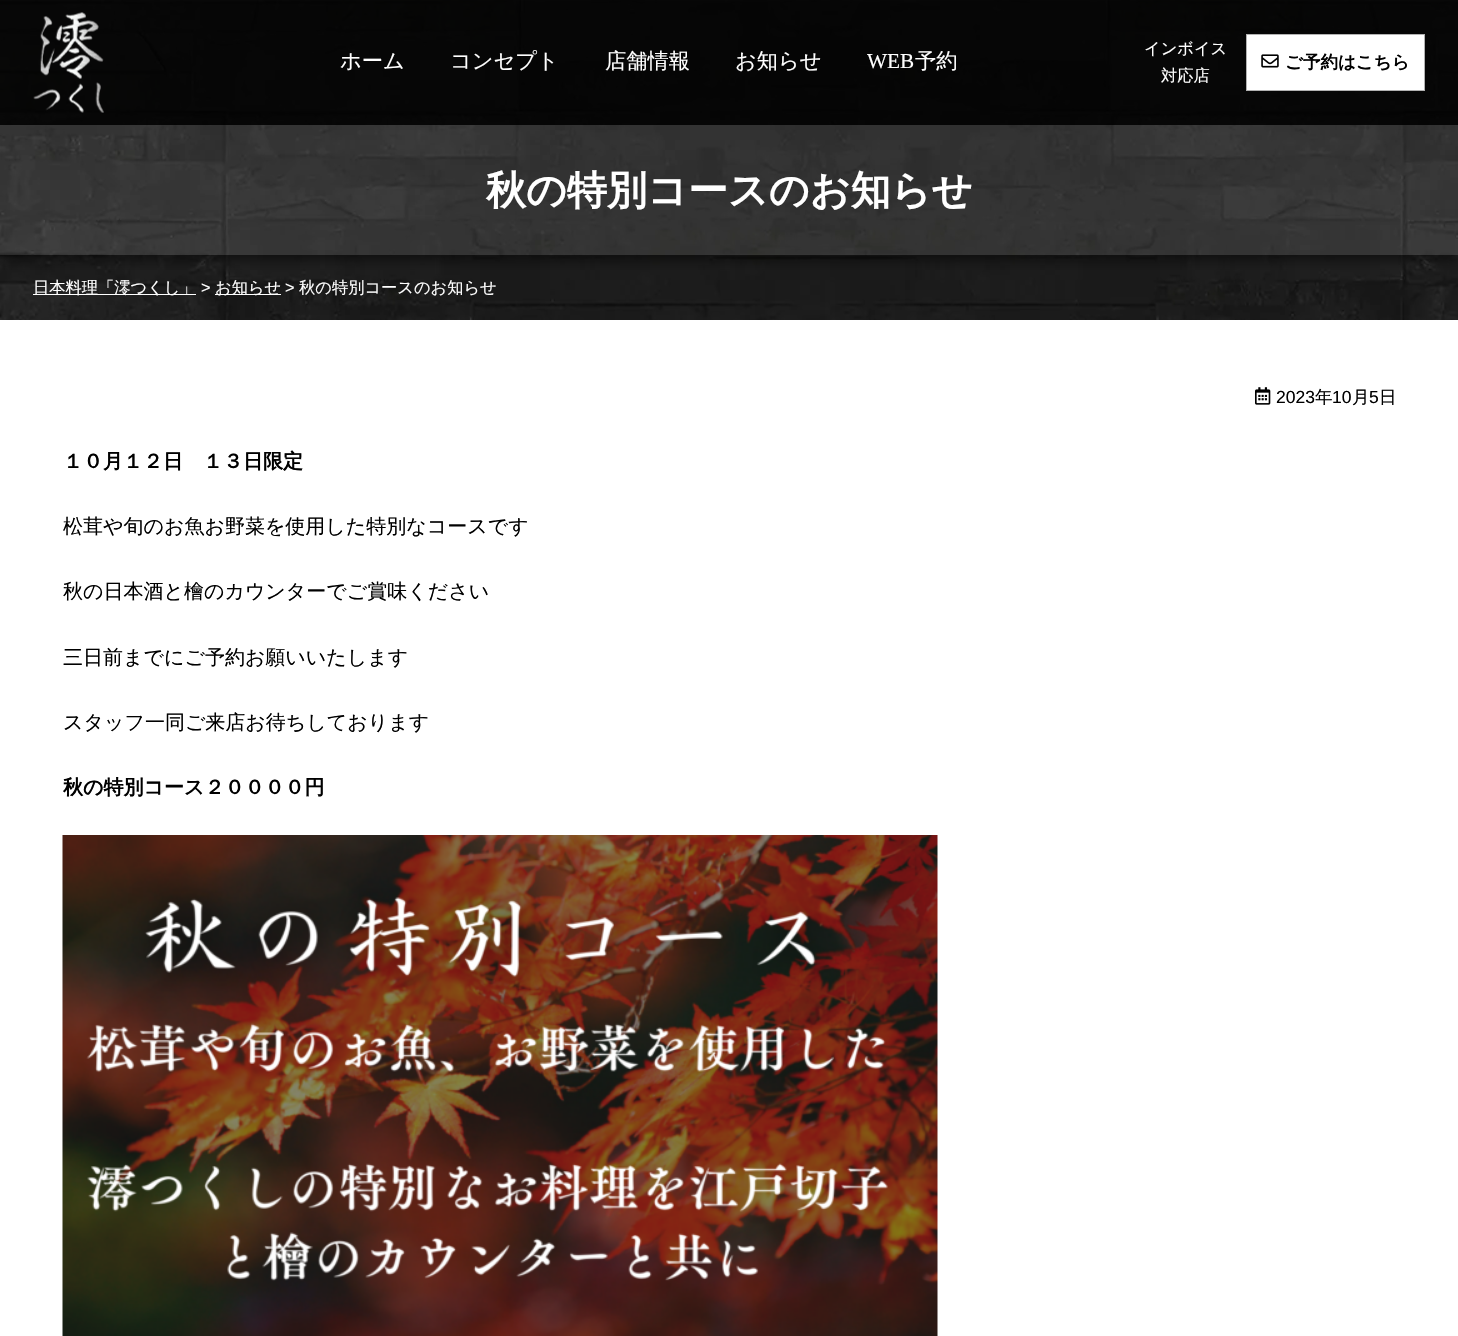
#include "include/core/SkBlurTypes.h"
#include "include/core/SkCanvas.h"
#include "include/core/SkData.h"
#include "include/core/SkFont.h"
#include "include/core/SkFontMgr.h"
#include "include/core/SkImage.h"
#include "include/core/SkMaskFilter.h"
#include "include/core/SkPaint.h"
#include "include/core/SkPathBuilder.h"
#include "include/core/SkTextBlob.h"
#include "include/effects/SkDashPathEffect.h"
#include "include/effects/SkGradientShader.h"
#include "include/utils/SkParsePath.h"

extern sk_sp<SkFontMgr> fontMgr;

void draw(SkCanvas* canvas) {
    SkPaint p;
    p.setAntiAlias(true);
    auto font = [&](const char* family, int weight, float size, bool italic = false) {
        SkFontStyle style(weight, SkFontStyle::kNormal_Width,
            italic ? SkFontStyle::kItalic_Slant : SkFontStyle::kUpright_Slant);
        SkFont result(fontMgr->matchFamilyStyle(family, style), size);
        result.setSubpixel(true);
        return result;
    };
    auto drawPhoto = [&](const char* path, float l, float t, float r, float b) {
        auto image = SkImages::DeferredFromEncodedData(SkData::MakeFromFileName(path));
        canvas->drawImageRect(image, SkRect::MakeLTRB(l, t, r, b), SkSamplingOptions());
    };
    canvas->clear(0xFFFFFFFF);
    drawPhoto("media/1.png", 0, 0, 1458, 320);
    canvas->save();
    canvas->clipRect(SkRect::MakeLTRB(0, 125, 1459, 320));
    canvas->clipRect(SkRect::MakeLTRB(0, 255, 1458, 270));
    p.setColor(0x80000000);
    p.setMaskFilter(SkMaskFilter::MakeBlur(kNormal_SkBlurStyle, 6));
    canvas->drawRect(SkRect::MakeLTRB(0, 130, 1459, 260), p);
    p.setMaskFilter(nullptr);
    canvas->restore();
    p.setColor(0xCC000000);
    canvas->drawRect(SkRect::MakeLTRB(0, 0, 1458, 125), p);
    drawPhoto("media/2.png", 33, 12, 104, 113);
    auto font1 = font("WenQuanYi Zen Hei", 500, 21.25f);
    p.setColor(0xFFFFFFFF);
    {
        const struct { const char* s; float x, y; } items[] = {
            {"ホーム", 340, 68},
            {"コンセプト", 450, 68},
            {"店舗情報", 605, 68},
            {"お知らせ", 735, 68},
        };
        for (auto [s, x, y] : items) {
            canvas->drawString(s, x, y, font1, p);
        }
    }
    auto font2 = font("Liberation Serif", 400, 21.25f);
    canvas->drawString("WEB", 867, 68, font2, p);
    canvas->drawString("予約", 915, 68, font1, p);
    auto font3 = font("WenQuanYi Zen Hei", 500, 16.25f);
    canvas->drawString("インボイス", 1144, 54, font3, p);
    canvas->drawString("対応店", 1161, 81, font3, p);
    canvas->drawRect(SkRect::MakeLTRB(1246.5f, 34.5f, 1424.5f, 90.5f), p);
    p.setStyle(SkPaint::kStroke_Style);
    p.setStrokeWidth(1);
    p.setColor(0xFFB2B2B2);
    canvas->drawRect(SkRect::MakeLTRB(1246.5f, 34.5f, 1424.5f, 90.5f), p);
    drawPhoto("media/3.png", 1261, 54, 1279, 68);
    auto font4 = font("WenQuanYi Zen Hei", 700, 17.5f);
    p.setStyle(SkPaint::kFill_Style);
    p.setColor(0xFF000000);
    canvas->drawString("ご予約はこちら", 1285, 68, font4, p);
    p.setColor(0x1AFFFFFF);
    canvas->drawRect(SkRect::MakeLTRB(0, 125, 1458, 255), p);
    auto font5 = font("WenQuanYi Zen Hei", 700, 40);
    p.setColor(0xFFFFFFFF);
    canvas->drawString("秋の特別コースのお知らせ", 486, 204, font5, p);
    canvas->drawRect(SkRect::MakeLTRB(33, 294, 196, 295), p);
    canvas->drawString("日本料理「澪つくし」", 33, 293, font3, p);
    auto font6 = font("Liberation Sans", 400, 16.25f);
    canvas->drawString(">", 201, 293, font6, p);
    canvas->drawRect(SkRect::MakeLTRB(215, 294, 281, 295), p);
    canvas->drawString("お知らせ", 215, 293, font3, p);
    canvas->drawString(">", 285, 293, font6, p);
    canvas->drawString("秋の特別コースのお知らせ", 299, 293, font3, p);
    drawPhoto("media/4.png", 1255, 387, 1271, 405);
    auto font7 = font("Liberation Sans", 400, 17.5f);
    p.setColor(0xFF000000);
    canvas->drawString("2023", 1276, 403, font7, p);
    auto font8 = font("WenQuanYi Zen Hei", 500, 17.5f);
    canvas->drawString("年", 1315, 403, font8, p);
    canvas->drawString("10", 1332, 403, font7, p);
    canvas->drawString("月", 1352, 403, font8, p);
    canvas->drawString("5", 1369, 403, font7, p);
    canvas->drawString("日", 1379, 403, font8, p);
    auto font9 = font("WenQuanYi Zen Hei", 700, 20);
    canvas->drawString("１０月１２日　１３日限定", 63, 468, font9, p);
    auto font10 = font("WenQuanYi Zen Hei", 500, 20);
    {
        const struct { const char* s; float x, y; } items[] = {
            {"松茸や旬のお魚お野菜を使用した特別なコースです", 63, 533},
            {"秋の日本酒と檜のカウンターでご賞味ください", 63, 598},
            {"三日前までにご予約お願いいたします", 63, 664},
            {"スタッフ一同ご来店お待ちしております", 63, 729},
        };
        for (auto [s, x, y] : items) {
            canvas->drawString(s, x, y, font10, p);
        }
    }
    canvas->drawString("秋の特別コース２００００円", 63, 794, font9, p);
    drawPhoto("media/5.png", 62, 835, 938, 1336);
}
